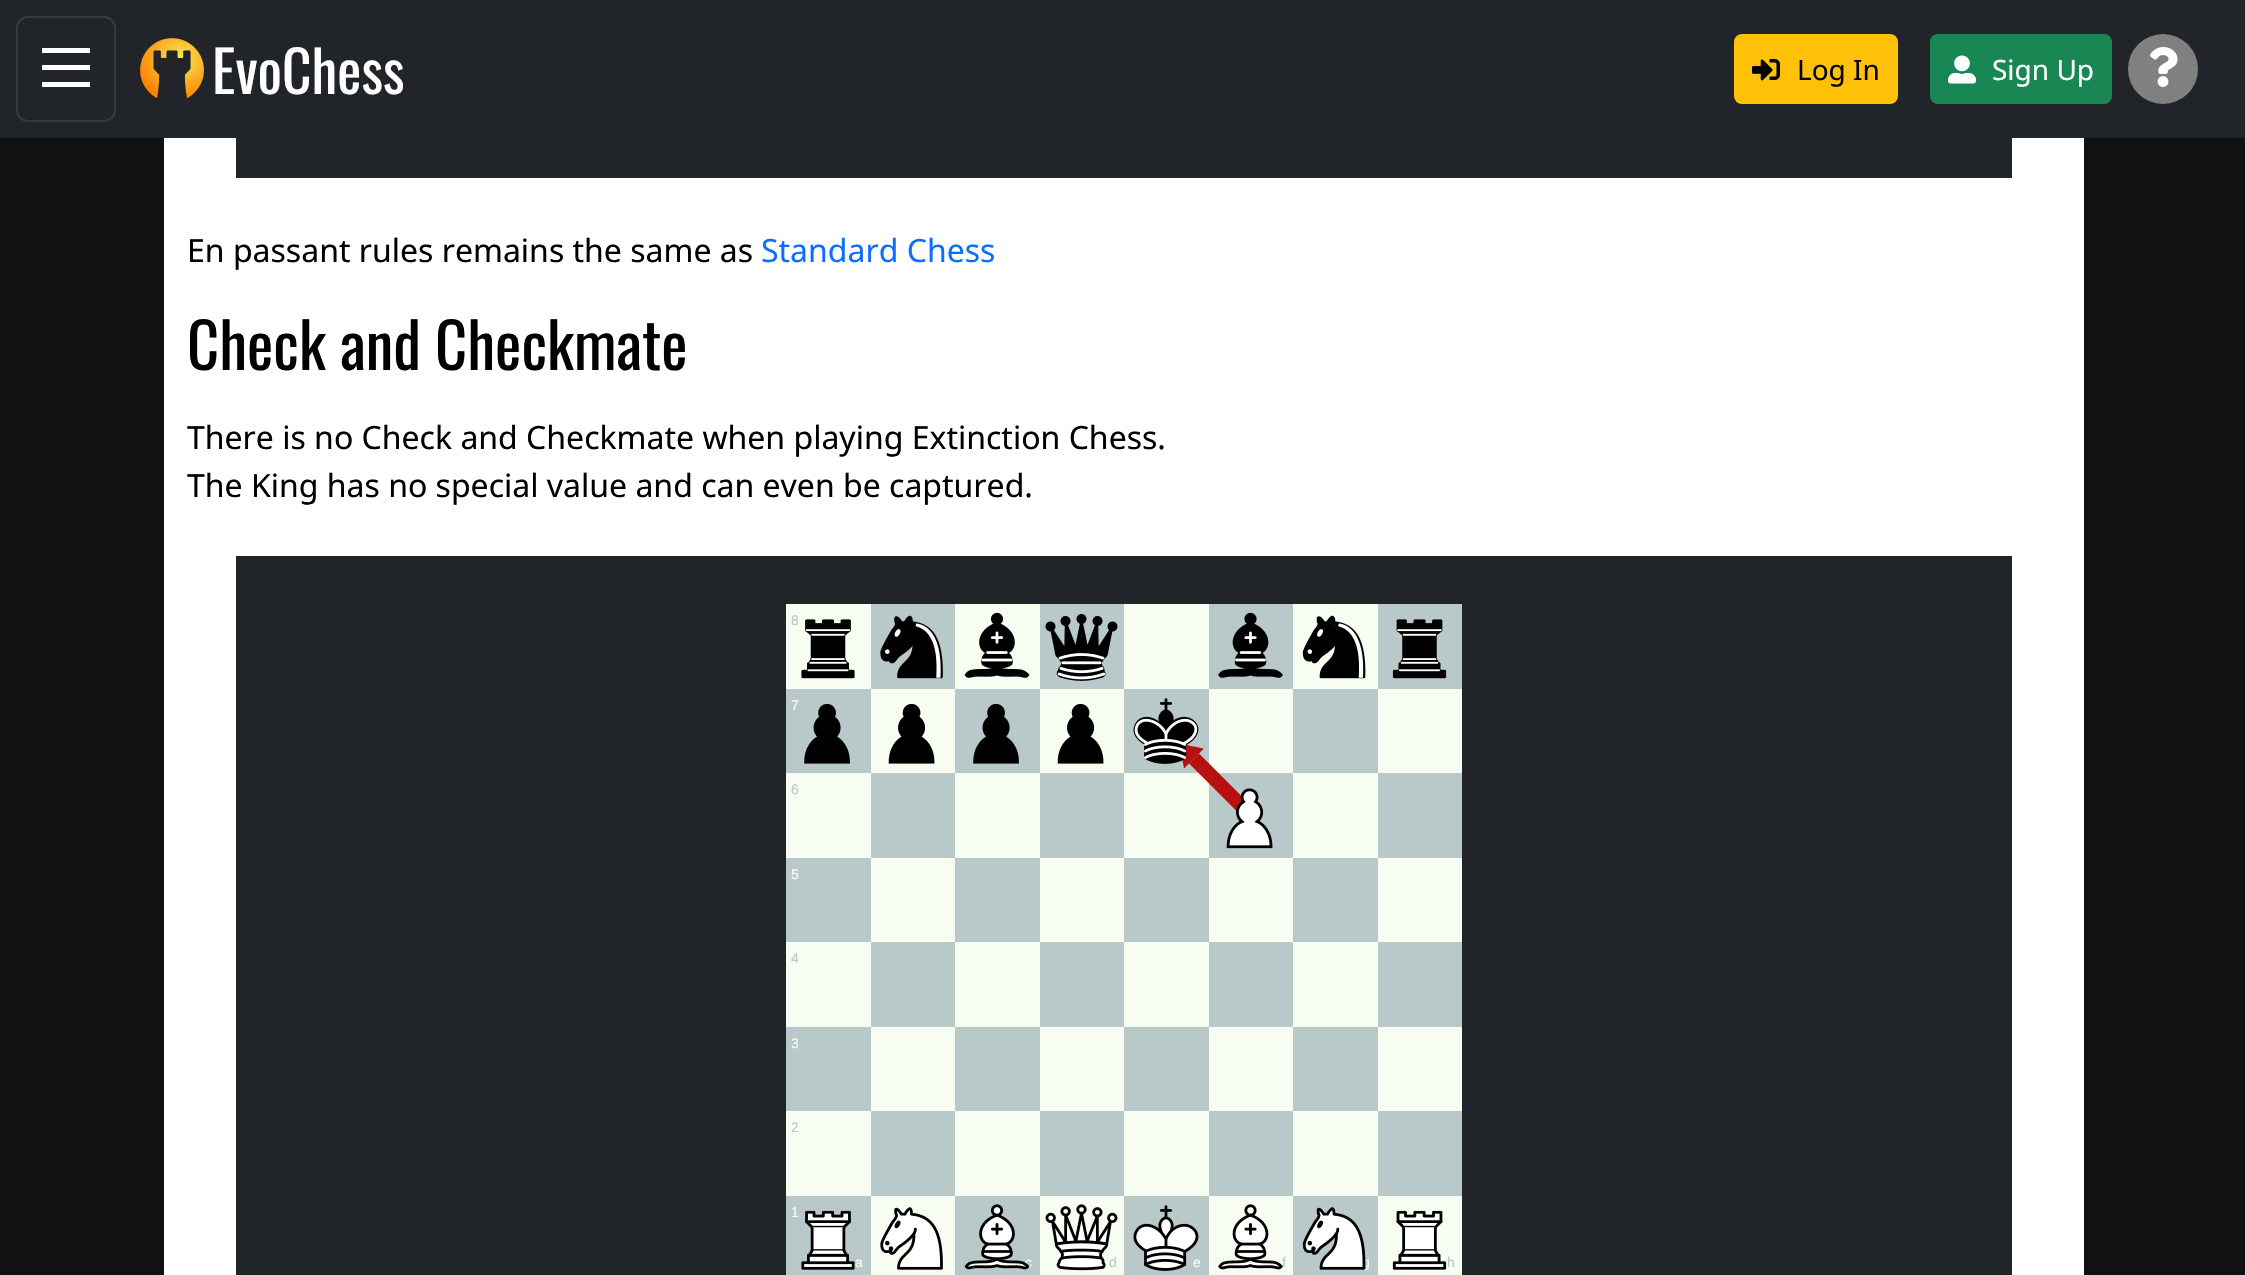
#include "include/core/SkBlurTypes.h"
#include "include/core/SkCanvas.h"
#include "include/core/SkData.h"
#include "include/core/SkFont.h"
#include "include/core/SkFontMgr.h"
#include "include/core/SkImage.h"
#include "include/core/SkMaskFilter.h"
#include "include/core/SkPaint.h"
#include "include/core/SkPathBuilder.h"
#include "include/core/SkTextBlob.h"
#include "include/effects/SkDashPathEffect.h"
#include "include/effects/SkGradientShader.h"
#include "include/utils/SkParsePath.h"

extern sk_sp<SkFontMgr> fontMgr;

void draw(SkCanvas* canvas) {
    SkPaint p;
    p.setAntiAlias(true);
    auto font = [&](const char* family, int weight, float size, bool italic = false) {
        SkFontStyle style(weight, SkFontStyle::kNormal_Width,
            italic ? SkFontStyle::kItalic_Slant : SkFontStyle::kUpright_Slant);
        SkFont result(fontMgr->matchFamilyStyle(family, style), size);
        result.setSubpixel(true);
        return result;
    };
    auto drawPhoto = [&](const char* path, float l, float t, float r, float b) {
        auto image = SkImages::DeferredFromEncodedData(SkData::MakeFromFileName(path));
        canvas->drawImageRect(image, SkRect::MakeLTRB(l, t, r, b), SkSamplingOptions());
    };
    canvas->clear(0xFF111111);
    p.setColor(0xFF212529);
    canvas->drawRect(SkRect::MakeLTRB(0, 0, 2245, 138), p);
    p.setStyle(SkPaint::kStroke_Style);
    p.setStrokeWidth(2);
    p.setColor(0xFF373B3E);
    canvas->drawRoundRect(SkRect::MakeLTRB(17, 17, 115, 121), 11, 11, p);
    p.setStyle(SkPaint::kFill_Style);
    {
        const struct { float l, t, r, b; SkColor color; } items[] = {
            {42, 48, 90, 53, 0xFFFFFFFF},
            {42, 65, 90, 70, 0xFFFFFFFF},
            {42, 82, 90, 87, 0xFFFFFFFF},
        };
        for (auto [l, t, r, b, color] : items) {
            p.setColor(color);
            canvas->drawRect(SkRect::MakeLTRB(l, t, r, b), p);
        }
    }
    drawPhoto("media/1.png", 140, 38, 204, 99);
    auto font1 = font("Oswald", 400, 57.5f);
    canvas->drawString("EvoChess", 212, 94, font1, p);
    p.setColor(0xFFFFC107);
    canvas->drawRoundRect(SkRect::MakeLTRB(1735, 35, 1897, 103), 7, 7, p);
    p.setStyle(SkPaint::kStroke_Style);
    canvas->drawRoundRect(SkRect::MakeLTRB(1735, 35, 1897, 103), 7, 7, p);
    drawPhoto("media/2.png", 1752, 59, 1780, 81);
    auto font2 = font("Noto Sans", 400, 28);
    p.setStyle(SkPaint::kFill_Style);
    p.setColor(0xFF000000);
    canvas->drawString("Log In", 1797, 80, font2, p);
    p.setColor(0xFF198754);
    canvas->drawRoundRect(SkRect::MakeLTRB(1931, 35, 2111, 103), 7, 7, p);
    p.setStyle(SkPaint::kStroke_Style);
    canvas->drawRoundRect(SkRect::MakeLTRB(1931, 35, 2111, 103), 7, 7, p);
    drawPhoto("media/3.png", 1948, 55, 1976, 84);
    p.setStyle(SkPaint::kFill_Style);
    p.setColor(0xFFFFFFFF);
    canvas->drawString("Sign Up", 1992, 80, font2, p);
    p.setColor(0xFF808080);
    canvas->drawCircle(2163, 69, 35, p);
    drawPhoto("media/4.png", 2150, 47, 2178, 87);
    p.setColor(0xFFFFFFFF);
    canvas->drawRect(SkRect::MakeLTRB(164, 138, 2084, 1275), p);
    p.setColor(0xFF212529);
    canvas->drawRect(SkRect::MakeLTRB(236, 138, 2012, 178), p);
    auto font3 = font("Noto Sans", 400, 32);
    p.setColor(0xFF000000);
    canvas->drawString("En passant rules remains the same as", 187, 262, font3, p);
    p.setColor(0xFF0D6EFD);
    canvas->drawString("Standard Chess", 761, 262, font3, p);
    auto font4 = font("Oswald", 400, 62.5f);
    p.setColor(0xFF000000);
    canvas->drawString("Check and Checkmate", 187, 370, font4, p);
    canvas->drawString("There is no Check and Checkmate when playing Extinction Chess.", 187, 449, font3, p);
    canvas->drawString("The King has no special value and can even be captured.", 187, 497, font3, p);
    p.setColor(0xFF212529);
    canvas->drawRect(SkRect::MakeLTRB(236, 556, 2012, 1275), p);
    drawPhoto("media/5.png", 786, 604, 1462, 1275);
    auto font5 = font("Liberation Sans", 400, 14);
    p.setColor(0xFFB9C8C8);
    canvas->drawString("8", 791, 625, font5, p);
    drawPhoto("media/6.png", 801, 619, 855, 679);
    drawPhoto("media/7.png", 880, 615, 943, 679);
    drawPhoto("media/8.png", 964, 612, 1030, 678);
    drawPhoto("media/9.png", 1045, 614, 1118, 681);
    drawPhoto("media/10.png", 1218, 612, 1283, 678);
    drawPhoto("media/11.png", 1302, 615, 1366, 679);
    drawPhoto("media/12.png", 1392, 619, 1447, 679);
    p.setColor(0xFFF7FEF1);
    canvas->drawString("7", 791, 710, font5, p);
    drawPhoto("media/13.png", 804, 703, 850, 764);
    drawPhoto("media/14.png", 888, 703, 935, 764);
    drawPhoto("media/13.png", 973, 703, 1019, 764);
    drawPhoto("media/14.png", 1057, 703, 1104, 764);
    drawPhoto("media/15.png", 1133, 698, 1199, 764);
    p.setColor(0xFFB9C8C8);
    canvas->drawString("6", 791, 794, font5, p);
    drawPhoto("media/16.png", 1226, 788, 1273, 849);
    p.setColor(0xFFF7FEF1);
    canvas->drawString("5", 791, 879, font5, p);
    p.setColor(0xFFB9C8C8);
    canvas->drawString("4", 791, 963, font5, p);
    p.setColor(0xFFF7FEF1);
    canvas->drawString("3", 791, 1048, font5, p);
    p.setColor(0xFFB9C8C8);
    canvas->drawString("2", 791, 1132, font5, p);
    p.setColor(0xFFF7FEF1);
    canvas->drawString("1", 791, 1217, font5, p);
    drawPhoto("media/17.png", 801, 1210, 855, 1270);
    drawPhoto("media/18.png", 880, 1207, 943, 1270);
    canvas->drawString("c", 1025, 1267, font5, p);
    drawPhoto("media/19.png", 964, 1204, 1030, 1270);
    p.setColor(0xFFB9C8C8);
    canvas->drawString("d", 1109, 1267, font5, p);
    drawPhoto("media/20.png", 1045, 1204, 1118, 1271);
    p.setColor(0xFFF7FEF1);
    canvas->drawString("e", 1193, 1267, font5, p);
    drawPhoto("media/21.png", 1133, 1205, 1199, 1271);
    p.setColor(0xFFB9C8C8);
    canvas->drawString("f", 1282, 1267, font5, p);
    drawPhoto("media/22.png", 1218, 1204, 1283, 1270);
    p.setColor(0xFFF7FEF1);
    canvas->drawString("g", 1362, 1267, font5, p);
    drawPhoto("media/23.png", 1302, 1207, 1366, 1270);
    drawPhoto("media/24.png", 1392, 1210, 1447, 1270);
    canvas->drawString("a", 855, 1267, font5, p);
    p.setColor(0xFFB9C8C8);
    canvas->drawString("h", 1447, 1267, font5, p);
}
